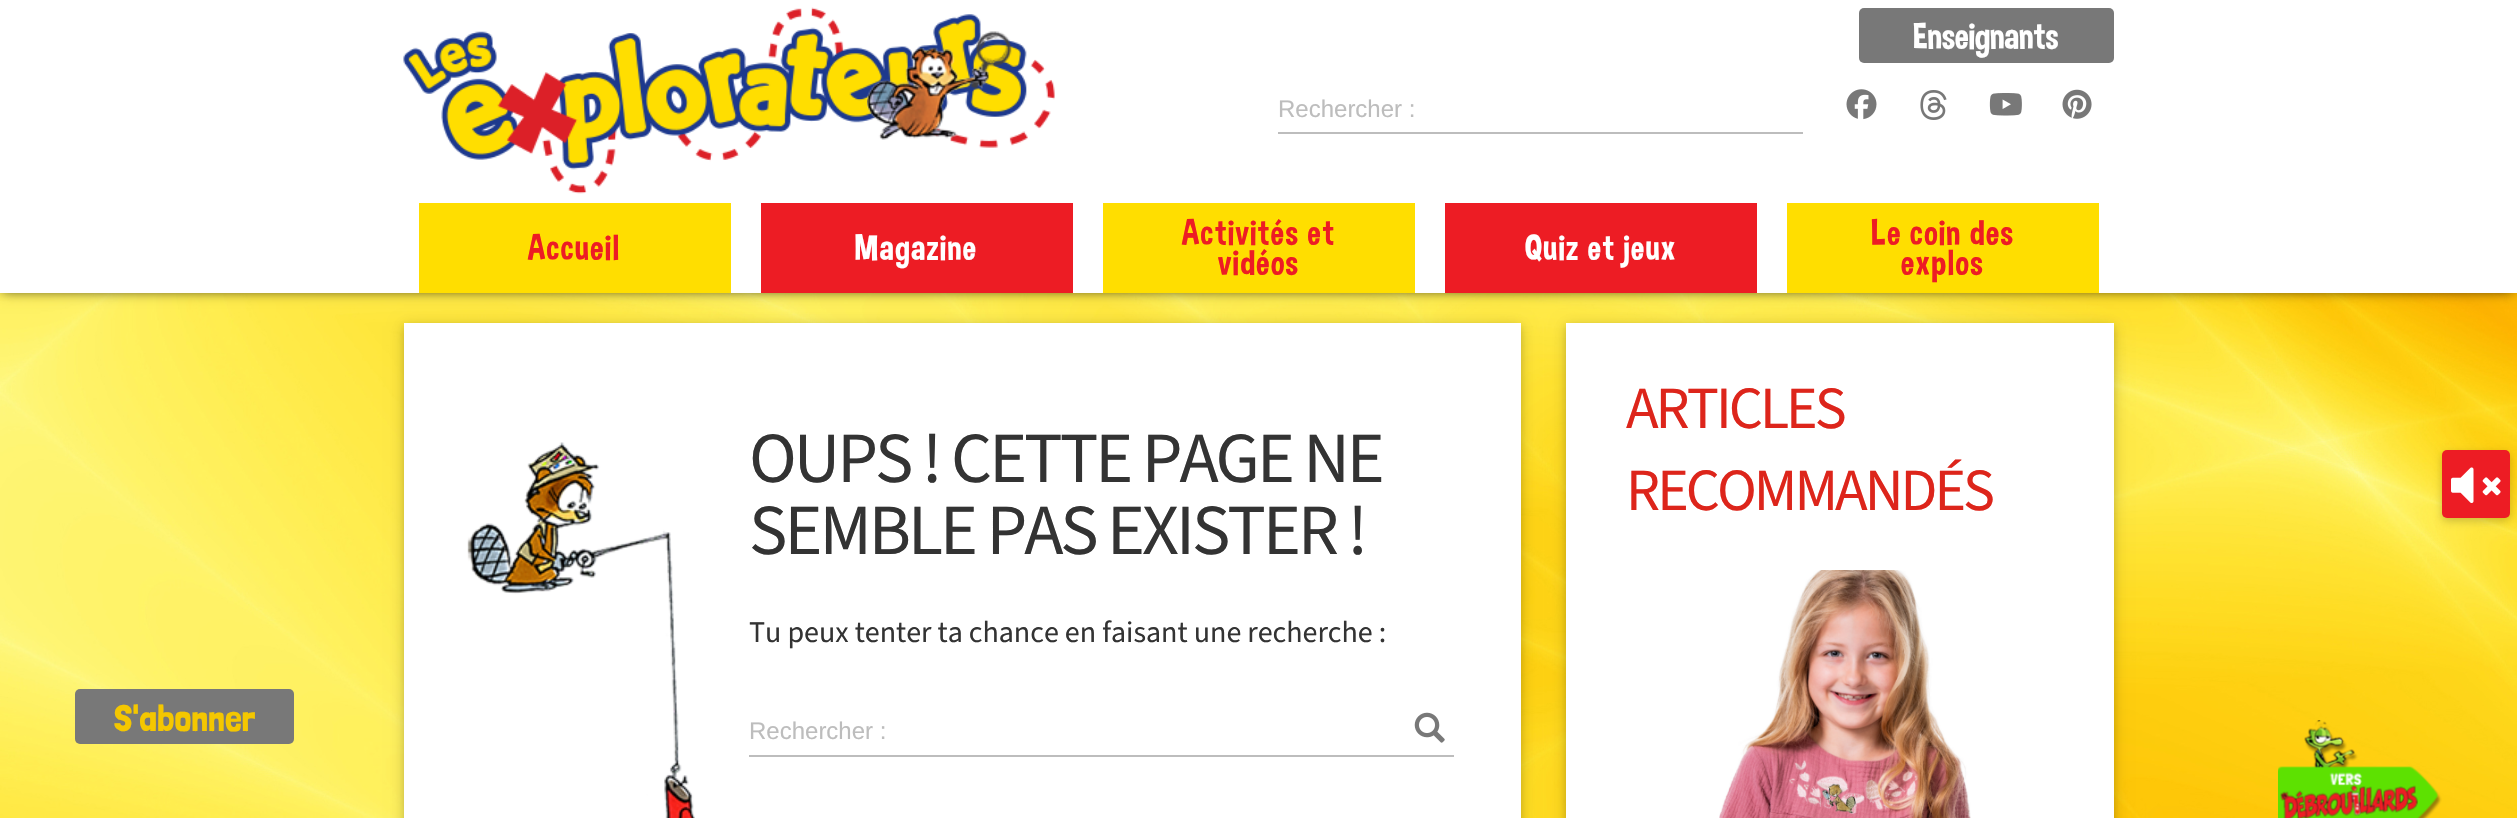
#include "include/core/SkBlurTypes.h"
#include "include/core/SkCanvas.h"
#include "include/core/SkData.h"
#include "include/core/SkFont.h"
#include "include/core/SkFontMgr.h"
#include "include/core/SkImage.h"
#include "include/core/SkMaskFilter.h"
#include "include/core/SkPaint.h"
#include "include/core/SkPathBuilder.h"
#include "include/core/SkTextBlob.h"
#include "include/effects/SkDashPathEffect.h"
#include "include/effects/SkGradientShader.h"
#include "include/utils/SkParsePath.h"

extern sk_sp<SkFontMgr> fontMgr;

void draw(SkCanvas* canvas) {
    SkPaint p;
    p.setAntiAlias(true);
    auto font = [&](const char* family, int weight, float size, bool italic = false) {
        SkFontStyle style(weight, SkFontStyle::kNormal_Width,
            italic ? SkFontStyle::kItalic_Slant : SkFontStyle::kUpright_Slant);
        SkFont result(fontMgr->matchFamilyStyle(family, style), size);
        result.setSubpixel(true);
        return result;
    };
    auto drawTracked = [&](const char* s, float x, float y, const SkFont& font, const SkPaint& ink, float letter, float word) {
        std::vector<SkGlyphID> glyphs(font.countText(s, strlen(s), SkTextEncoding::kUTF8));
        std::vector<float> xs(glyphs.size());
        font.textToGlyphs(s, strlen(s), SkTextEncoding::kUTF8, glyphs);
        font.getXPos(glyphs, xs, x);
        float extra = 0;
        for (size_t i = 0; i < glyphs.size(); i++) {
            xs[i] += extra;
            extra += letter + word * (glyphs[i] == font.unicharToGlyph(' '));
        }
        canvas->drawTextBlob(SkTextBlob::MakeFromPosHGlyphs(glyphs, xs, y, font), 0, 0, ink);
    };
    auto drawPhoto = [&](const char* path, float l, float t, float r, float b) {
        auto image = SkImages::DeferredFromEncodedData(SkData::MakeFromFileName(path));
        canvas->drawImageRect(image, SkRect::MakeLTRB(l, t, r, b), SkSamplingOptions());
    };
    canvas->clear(0xFFFFFFFF);
    drawPhoto("media/1.png", 0, 293, 2517, 818);
    p.setColor(0xBF000000);
    p.setMaskFilter(SkMaskFilter::MakeBlur(kNormal_SkBlurStyle, 6));
    canvas->drawRect(SkRect::MakeLTRB(2, 5, 2513, 291), p);
    p.setMaskFilter(nullptr);
    p.setColor(0xFFFFFFFF);
    canvas->drawRect(SkRect::MakeLTRB(0, 0, 2517, 293), p);
    drawPhoto("media/2.png", 403, 7, 1055, 194);
    p.setColor(0xFF787878);
    canvas->drawRoundRect(SkRect::MakeLTRB(1859, 8, 2114, 63), 5, 5, p);
    auto font1 = font("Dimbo", 400, 37.5f);
    p.setColor(0xFFFFFFFF);
    canvas->drawString("Enseignants", 1913, 50, font1, p);
    drawPhoto("media/3.png", 867, 31, 1012, 140);
    auto font2 = font("Liberation Sans", 400, 24);
    p.setColor(0xFFBDBDBD);
    canvas->drawString("Rechercher :", 1278, 117, font2, p);
    canvas->drawRect(SkRect::MakeLTRB(1278, 132, 1803, 134), p);
    drawPhoto("media/4.png", 1846, 89, 1877, 120);
    drawPhoto("media/5.png", 1920, 90, 1947, 120);
    drawPhoto("media/6.png", 1989, 93, 2022, 116);
    drawPhoto("media/7.png", 2062, 89, 2092, 119);
    p.setColor(0xFFFFDE00);
    canvas->drawRect(SkRect::MakeLTRB(419, 203, 731, 293), p);
    auto font3 = font("Dimbo", 400, 36);
    p.setColor(0xFFED1C24);
    drawTracked("Accueil", 528, 261, font3, p, 1.5f, 0);
    canvas->drawRect(SkRect::MakeLTRB(761, 203, 1073, 293), p);
    p.setColor(0xFFFFFFFF);
    drawTracked("Magazine", 855, 261, font3, p, 1.5f, 0);
    p.setColor(0xFFFFDE00);
    canvas->drawRect(SkRect::MakeLTRB(1103, 203, 1415, 293), p);
    p.setColor(0xFFED1C24);
    drawTracked("Activités et", 1182, 246, font3, p, 1.5f, 0);
    drawTracked("vidéos", 1218, 276, font3, p, 1.5f, 0);
    canvas->drawRect(SkRect::MakeLTRB(1445, 203, 1757, 293), p);
    p.setColor(0xFFFFFFFF);
    drawTracked("Quiz et jeux", 1525, 261, font3, p, 1.5f, 0);
    p.setColor(0xFFFFDE00);
    canvas->drawRect(SkRect::MakeLTRB(1787, 203, 2099, 293), p);
    p.setColor(0xFFED1C24);
    drawTracked("Le coin des", 1871, 246, font3, p, 1.5f, 0);
    drawTracked("explos", 1901, 276, font3, p, 1.5f, 0);
    p.setColor(0x1F000000);
    p.setMaskFilter(SkMaskFilter::MakeBlur(kNormal_SkBlurStyle, 7.5f));
    canvas->drawRect(SkRect::MakeLTRB(404, 326, 1521, 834), p);
    p.setMaskFilter(nullptr);
    p.setColor(0x29000000);
    p.setMaskFilter(SkMaskFilter::MakeBlur(kNormal_SkBlurStyle, 4));
    canvas->drawRect(SkRect::MakeLTRB(404, 326, 1521, 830), p);
    p.setMaskFilter(nullptr);
    p.setColor(0xFFFFFFFF);
    canvas->drawRect(SkRect::MakeLTRB(404, 323, 1521, 818), p);
    drawPhoto("media/8.png", 467, 442, 695, 818);
    auto font4 = font("Source Sans 3", 400, 72);
    p.setColor(0xFF333333);
    drawTracked("OUPS ! CETTE PAGE NE", 749, 482, font4, p, -3, 0);
    drawTracked("SEMBLE PAS EXISTER !", 749, 554, font4, p, -3, 0);
    auto font5 = font("Source Sans 3", 400, 30);
    canvas->drawString("Tu peux tenter ta chance en faisant une recherche :", 749, 642, font5, p);
    p.setColor(0xFFBDBDBD);
    canvas->drawString("Rechercher :", 749, 739, font2, p);
    drawPhoto("media/9.png", 1414, 712, 1445, 743);
    canvas->drawRect(SkRect::MakeLTRB(749, 755, 1454, 757), p);
    p.setColor(0x1F000000);
    p.setMaskFilter(SkMaskFilter::MakeBlur(kNormal_SkBlurStyle, 7.5f));
    canvas->drawRect(SkRect::MakeLTRB(1566, 326, 2114, 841), p);
    p.setMaskFilter(nullptr);
    p.setColor(0x29000000);
    p.setMaskFilter(SkMaskFilter::MakeBlur(kNormal_SkBlurStyle, 4));
    canvas->drawRect(SkRect::MakeLTRB(1566, 326, 2114, 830), p);
    p.setMaskFilter(nullptr);
    p.setColor(0xFFFFFFFF);
    canvas->drawRect(SkRect::MakeLTRB(1566, 323, 2114, 818), p);
    auto font6 = font("Source Sans 3", 400, 60);
    p.setColor(0xFFDD251B);
    drawTracked("ARTICLES", 1626, 428, font6, p, -3, 0);
    drawTracked("RECOMMANDÉS", 1626, 510, font6, p, -3, 0);
    drawPhoto("media/10.png", 1719, 570, 1971, 818);
    p.setColor(0x33000000);
    p.setMaskFilter(SkMaskFilter::MakeBlur(kNormal_SkBlurStyle, 4));
    canvas->drawRoundRect(SkRect::MakeLTRB(2442, 453, 2510, 521), 5, 5, p);
    p.setMaskFilter(nullptr);
    p.setColor(0xFFED1C24);
    canvas->drawRoundRect(SkRect::MakeLTRB(2442, 450, 2510, 518), 5, 5, p);
    drawPhoto("media/11.png", 2451, 467, 2474, 503);
    drawPhoto("media/12.png", 2482, 477, 2501, 496);
    p.setColor(0xFF787878);
    canvas->drawRoundRect(SkRect::MakeLTRB(75, 689, 294, 744), 5, 5, p);
    auto font7 = font("Londrina Solid", 400, 37.5f);
    p.setColor(0xFFF4C700);
    canvas->drawString("S'abonner", 114, 731, font7, p);
    drawPhoto("media/13.png", 2278, 720, 2442, 818);
}
